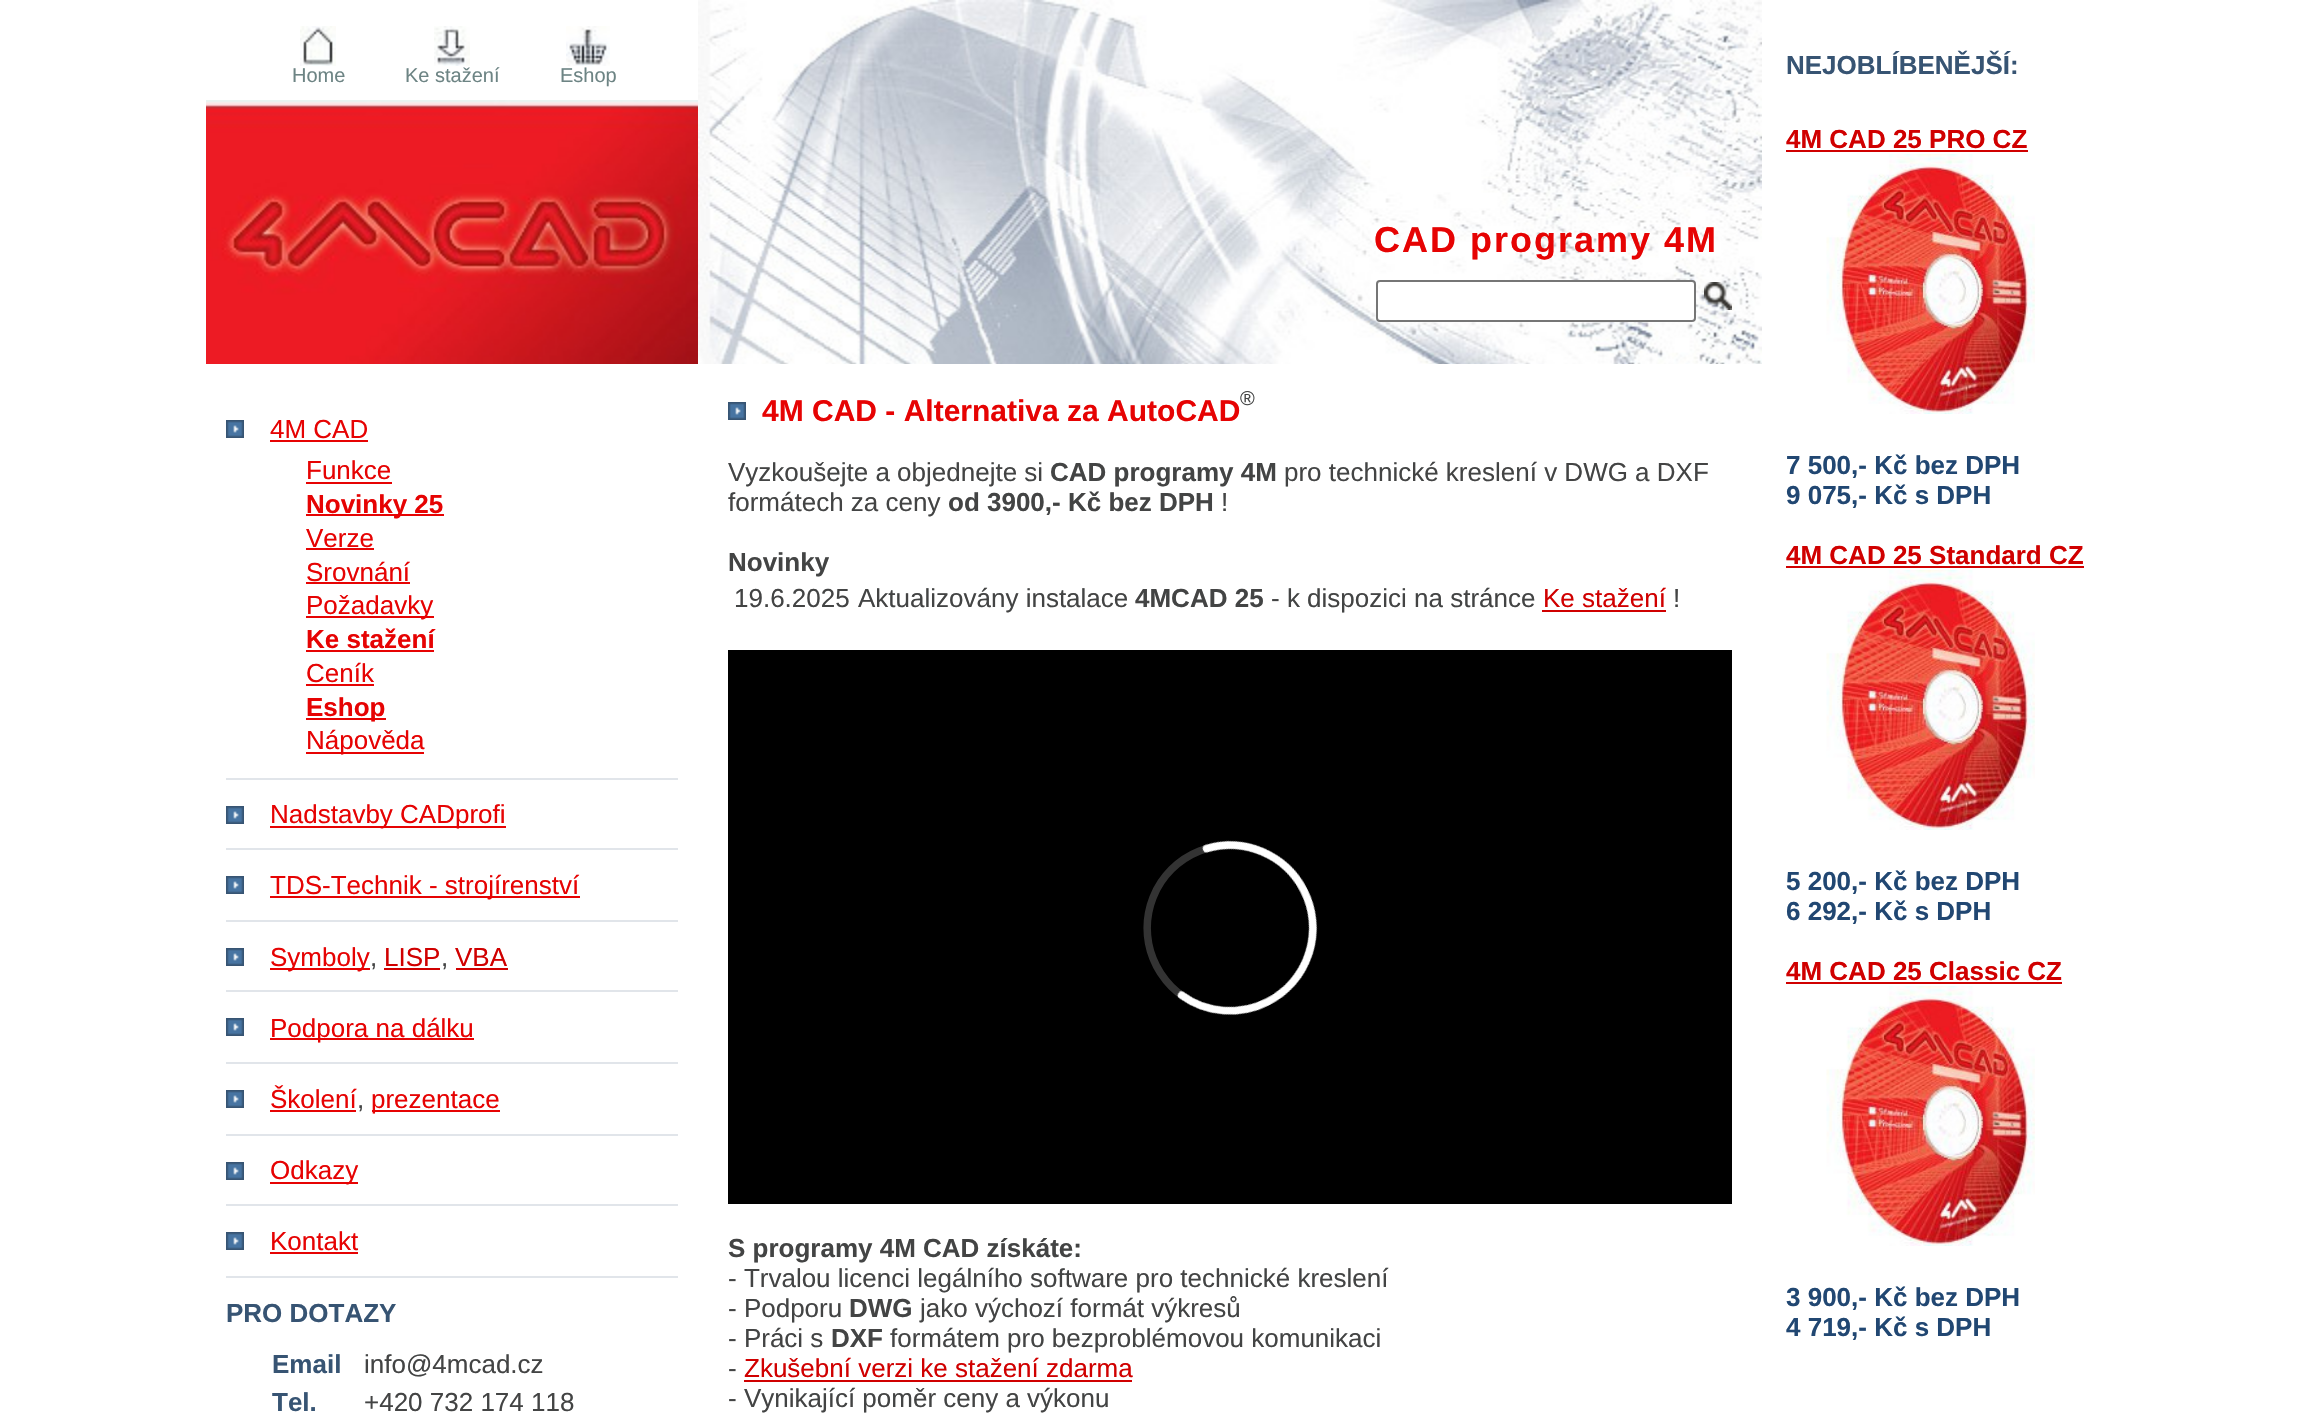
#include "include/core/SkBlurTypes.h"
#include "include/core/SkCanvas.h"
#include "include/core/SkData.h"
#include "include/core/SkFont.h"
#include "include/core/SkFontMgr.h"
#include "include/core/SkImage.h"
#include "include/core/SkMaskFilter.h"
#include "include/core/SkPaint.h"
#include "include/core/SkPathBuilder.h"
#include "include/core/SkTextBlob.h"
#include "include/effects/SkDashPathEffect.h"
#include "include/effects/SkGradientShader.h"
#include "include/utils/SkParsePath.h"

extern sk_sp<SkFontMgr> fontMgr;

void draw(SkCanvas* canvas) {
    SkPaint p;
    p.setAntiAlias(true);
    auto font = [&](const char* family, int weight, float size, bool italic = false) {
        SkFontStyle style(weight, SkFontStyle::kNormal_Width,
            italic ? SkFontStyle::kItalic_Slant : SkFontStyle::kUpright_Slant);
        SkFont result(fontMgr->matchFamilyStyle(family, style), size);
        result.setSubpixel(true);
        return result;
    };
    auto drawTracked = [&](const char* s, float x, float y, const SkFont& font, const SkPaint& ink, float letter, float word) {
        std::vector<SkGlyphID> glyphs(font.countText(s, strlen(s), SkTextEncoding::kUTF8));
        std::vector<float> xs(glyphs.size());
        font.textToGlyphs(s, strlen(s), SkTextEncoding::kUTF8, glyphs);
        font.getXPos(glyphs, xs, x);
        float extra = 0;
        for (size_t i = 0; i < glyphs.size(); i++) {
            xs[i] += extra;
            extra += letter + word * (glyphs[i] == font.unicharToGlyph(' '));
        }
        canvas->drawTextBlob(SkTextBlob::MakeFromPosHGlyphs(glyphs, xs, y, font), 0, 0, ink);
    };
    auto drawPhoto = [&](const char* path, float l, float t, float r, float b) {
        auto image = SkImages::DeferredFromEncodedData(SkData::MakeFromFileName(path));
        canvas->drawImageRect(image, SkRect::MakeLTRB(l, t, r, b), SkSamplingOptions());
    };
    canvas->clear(0xFFFFFFFF);
    drawPhoto("media/1.png", 300, 26, 336, 66);
    auto font1 = font("Liberation Sans", 400, 20);
    p.setColor(0xFF6D8484);
    canvas->drawString("Home", 292, 82, font1, p);
    drawPhoto("media/2.png", 434, 26, 470, 66);
    canvas->drawString("Ke stažení", 405, 82, font1, p);
    drawPhoto("media/3.png", 566, 26, 610, 66);
    canvas->drawString("Eshop", 560, 82, font1, p);
    drawPhoto("media/4.png", 206, 100, 698, 364);
    p.setColor(0xFFE1E5EA);
    canvas->drawRect(SkRect::MakeLTRB(226, 778, 678, 780), p);
    drawPhoto("media/5.png", 226, 420, 244, 438);
    auto font2 = font("Liberation Sans", 400, 26);
    p.setColor(0xFFE60303);
    canvas->drawString("4M CAD", 270, 438, font2, p);
    canvas->drawRect(SkRect::MakeLTRB(270, 440, 368, 442), p);
    canvas->drawString("Funkce", 306, 479, font2, p);
    canvas->drawRect(SkRect::MakeLTRB(306, 482, 392, 484), p);
    canvas->drawRect(SkRect::MakeLTRB(306, 514, 444, 516), p);
    auto font3 = font("Liberation Sans", 700, 26);
    canvas->drawString("Novinky 25", 306, 513, font3, p);
    canvas->drawString("Verze", 306, 547, font2, p);
    canvas->drawRect(SkRect::MakeLTRB(306, 548, 374, 550), p);
    canvas->drawString("Srovnání", 306, 581, font2, p);
    canvas->drawRect(SkRect::MakeLTRB(306, 582, 410, 584), p);
    canvas->drawRect(SkRect::MakeLTRB(306, 616, 434, 618), p);
    canvas->drawString("Požadavky", 306, 614, font2, p);
    canvas->drawString("Ke stažení", 306, 648, font3, p);
    canvas->drawRect(SkRect::MakeLTRB(306, 650, 434, 652), p);
    canvas->drawString("Ceník", 306, 682, font2, p);
    canvas->drawRect(SkRect::MakeLTRB(306, 684, 374, 686), p);
    canvas->drawRect(SkRect::MakeLTRB(306, 718, 386, 720), p);
    canvas->drawString("Eshop", 306, 716, font3, p);
    canvas->drawRect(SkRect::MakeLTRB(306, 752, 424, 754), p);
    canvas->drawString("Nápověda", 306, 749, font2, p);
    p.setColor(0xFFE1E5EA);
    canvas->drawRect(SkRect::MakeLTRB(226, 848, 678, 850), p);
    drawPhoto("media/5.png", 226, 806, 244, 824);
    p.setColor(0xFFE60303);
    canvas->drawRect(SkRect::MakeLTRB(270, 826, 506, 828), p);
    canvas->drawString("Nadstavby CADprofi", 270, 823, font2, p);
    p.setColor(0xFFE1E5EA);
    canvas->drawRect(SkRect::MakeLTRB(226, 920, 678, 922), p);
    drawPhoto("media/5.png", 226, 876, 244, 894);
    p.setColor(0xFFE60303);
    canvas->drawRect(SkRect::MakeLTRB(270, 896, 580, 898), p);
    canvas->drawString("TDS-Technik - strojírenství", 270, 894, font2, p);
    p.setColor(0xFFE1E5EA);
    canvas->drawRect(SkRect::MakeLTRB(226, 990, 678, 992), p);
    drawPhoto("media/5.png", 226, 948, 244, 966);
    p.setColor(0xFFE60303);
    canvas->drawRect(SkRect::MakeLTRB(270, 968, 370, 970), p);
    canvas->drawString("Symboly", 270, 966, font2, p);
    p.setColor(0xFF434444);
    canvas->drawString(",", 370, 966, font2, p);
    p.setColor(0xFFD00000);
    canvas->drawString("LISP", 384, 966, font2, p);
    canvas->drawRect(SkRect::MakeLTRB(384, 968, 440, 970), p);
    p.setColor(0xFF434444);
    canvas->drawString(",", 441, 966, font2, p);
    p.setColor(0xFFD00000);
    canvas->drawString("VBA", 455, 966, font2, p);
    canvas->drawRect(SkRect::MakeLTRB(456, 968, 508, 970), p);
    p.setColor(0xFFE1E5EA);
    canvas->drawRect(SkRect::MakeLTRB(226, 1062, 678, 1064), p);
    drawPhoto("media/5.png", 226, 1018, 244, 1036);
    p.setColor(0xFFE60303);
    canvas->drawRect(SkRect::MakeLTRB(270, 1038, 474, 1040), p);
    canvas->drawString("Podpora na dálku", 270, 1037, font2, p);
    p.setColor(0xFFE1E5EA);
    canvas->drawRect(SkRect::MakeLTRB(226, 1134, 678, 1136), p);
    drawPhoto("media/5.png", 226, 1090, 244, 1108);
    p.setColor(0xFFE60303);
    canvas->drawString("Školení", 270, 1108, font2, p);
    canvas->drawRect(SkRect::MakeLTRB(270, 1110, 356, 1112), p);
    p.setColor(0xFF434444);
    canvas->drawString(",", 357, 1108, font2, p);
    p.setColor(0xFFE60303);
    canvas->drawRect(SkRect::MakeLTRB(372, 1110, 500, 1112), p);
    canvas->drawString("prezentace", 371, 1108, font2, p);
    p.setColor(0xFFE1E5EA);
    canvas->drawRect(SkRect::MakeLTRB(226, 1204, 678, 1206), p);
    drawPhoto("media/5.png", 226, 1162, 244, 1180);
    p.setColor(0xFFE60303);
    canvas->drawRect(SkRect::MakeLTRB(270, 1182, 358, 1184), p);
    canvas->drawString("Odkazy", 270, 1179, font2, p);
    p.setColor(0xFFE1E5EA);
    canvas->drawRect(SkRect::MakeLTRB(226, 1276, 678, 1278), p);
    drawPhoto("media/5.png", 226, 1232, 244, 1250);
    p.setColor(0xFFE60303);
    canvas->drawString("Kontakt", 270, 1250, font2, p);
    canvas->drawRect(SkRect::MakeLTRB(270, 1252, 358, 1254), p);
    p.setColor(0xFF375473);
    canvas->drawString("PRO DOTAZY", 226, 1322, font3, p);
    canvas->drawString("Email", 272, 1373, font3, p);
    p.setColor(0xFF434444);
    canvas->drawString("info@4mcad.cz", 364, 1373, font2, p);
    p.setColor(0xFF375473);
    canvas->drawString("Tel.", 272, 1411, font3, p);
    p.setColor(0xFF434444);
    canvas->drawString("+420 732 174 118", 364, 1411, font2, p);
    drawPhoto("media/6.png", 698, 0, 1762, 364);
    auto font4 = font("Liberation Sans", 700, 36);
    p.setColor(0xFFE60303);
    drawTracked("CAD programy 4M", 1374, 252, font4, p, 2, 0);
    drawPhoto("media/5.png", 728, 402, 746, 420);
    auto font5 = font("Liberation Sans", 700, 30);
    canvas->drawString("4M CAD - Alternativa za AutoCAD", 762, 421, font5, p);
    p.setColor(0xFF434444);
    canvas->drawString("®", 1240, 405, font1, p);
    canvas->drawString("Vyzkoušejte a objednejte si", 728, 481, font2, p);
    canvas->drawString("CAD programy 4M", 1050, 481, font3, p);
    canvas->drawString("pro technické kreslení v DWG a DXF", 1284, 481, font2, p);
    canvas->drawString("formátech za ceny", 728, 511, font2, p);
    canvas->drawString("od 3900,- Kč bez DPH", 948, 511, font3, p);
    canvas->drawString("!", 1221, 511, font2, p);
    canvas->drawString("Novinky", 728, 571, font3, p);
    canvas->drawString("19.6.2025", 734, 607, font2, p);
    canvas->drawString("Aktualizovány instalace", 858, 607, font2, p);
    canvas->drawString("4MCAD 25", 1135, 607, font3, p);
    canvas->drawString("- k dispozici na stránce", 1271, 607, font2, p);
    p.setColor(0xFFD00000);
    canvas->drawString("Ke stažení", 1543, 607, font2, p);
    canvas->drawRect(SkRect::MakeLTRB(1542, 610, 1666, 612), p);
    p.setColor(0xFF434444);
    canvas->drawString("!", 1673, 607, font2, p);
    drawPhoto("media/7.png", 728, 650, 1732, 1204);
    canvas->drawString("S programy 4M CAD získáte:", 728, 1257, font3, p);
    canvas->drawString("- Trvalou licenci legálního software pro technické kreslení", 728, 1287, font2, p);
    canvas->drawString("- Podporu", 728, 1317, font2, p);
    canvas->drawString("DWG", 849, 1317, font3, p);
    canvas->drawString("jako výchozí formát výkresů", 920, 1317, font2, p);
    canvas->drawString("- Práci s", 728, 1347, font2, p);
    canvas->drawString("DXF", 831, 1347, font3, p);
    canvas->drawString("formátem pro bezproblémovou komunikaci", 890, 1347, font2, p);
    canvas->drawString("-", 728, 1377, font2, p);
    p.setColor(0xFFD00000);
    canvas->drawString("Zkušební verzi ke stažení zdarma", 744, 1377, font2, p);
    canvas->drawRect(SkRect::MakeLTRB(744, 1380, 1132, 1382), p);
    p.setColor(0xFF434444);
    canvas->drawString("- Vynikající poměr ceny a výkonu", 728, 1407, font2, p);
    p.setColor(0xFF375473);
    canvas->drawString("NEJOBLÍBENĚJŠÍ:", 1786, 74, font3, p);
    p.setColor(0xFFD00000);
    canvas->drawString("4M CAD 25 PRO CZ", 1786, 148, font3, p);
    canvas->drawRect(SkRect::MakeLTRB(1786, 150, 2028, 152), p);
    drawPhoto("media/8.png", 1826, 154, 2035, 414);
    p.setColor(0xFF214772);
    canvas->drawString("7 500,- Kč bez DPH", 1786, 474, font3, p);
    canvas->drawString("9 075,- Kč s DPH", 1786, 504, font3, p);
    p.setColor(0xFFD00000);
    canvas->drawString("4M CAD 25 Standard CZ", 1786, 564, font3, p);
    canvas->drawRect(SkRect::MakeLTRB(1786, 566, 2084, 568), p);
    drawPhoto("media/9.png", 1826, 570, 2035, 830);
    p.setColor(0xFF214772);
    canvas->drawString("5 200,- Kč bez DPH", 1786, 890, font3, p);
    canvas->drawString("6 292,- Kč s DPH", 1786, 920, font3, p);
    p.setColor(0xFFD00000);
    canvas->drawString("4M CAD 25 Classic CZ", 1786, 980, font3, p);
    canvas->drawRect(SkRect::MakeLTRB(1786, 982, 2062, 984), p);
    drawPhoto("media/8.png", 1826, 986, 2035, 1246);
    p.setColor(0xFF214772);
    canvas->drawString("3 900,- Kč bez DPH", 1786, 1306, font3, p);
    canvas->drawString("4 719,- Kč s DPH", 1786, 1336, font3, p);
    p.setColor(0xFFFFFFFF);
    canvas->drawRoundRect(SkRect::MakeLTRB(1377, 281, 1695, 321), 3, 3, p);
    p.setStyle(SkPaint::kStroke_Style);
    p.setStrokeWidth(2);
    p.setColor(0xFF767676);
    canvas->drawRoundRect(SkRect::MakeLTRB(1377, 281, 1695, 321), 3, 3, p);
    drawPhoto("media/10.png", 1704, 282, 1732, 310);
}
